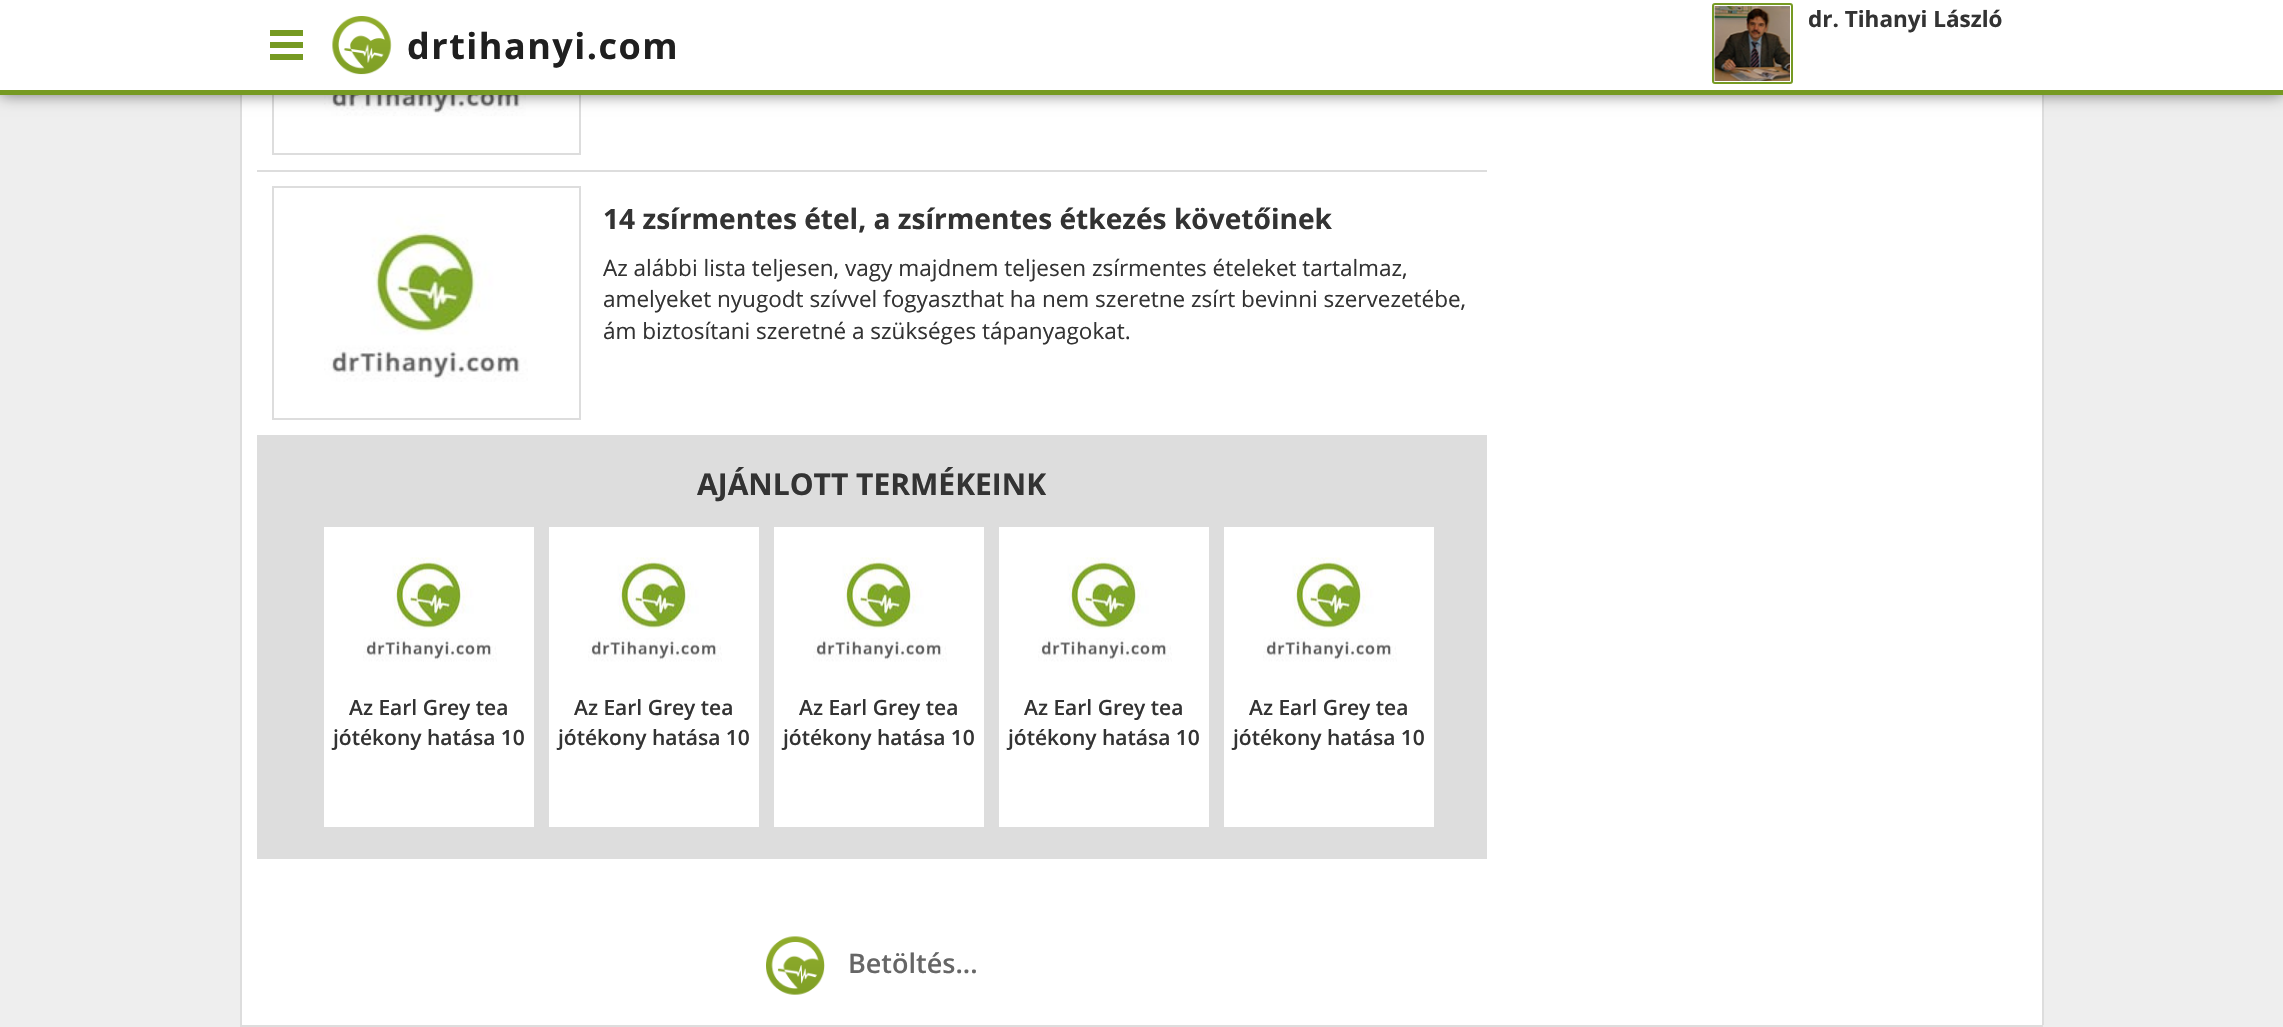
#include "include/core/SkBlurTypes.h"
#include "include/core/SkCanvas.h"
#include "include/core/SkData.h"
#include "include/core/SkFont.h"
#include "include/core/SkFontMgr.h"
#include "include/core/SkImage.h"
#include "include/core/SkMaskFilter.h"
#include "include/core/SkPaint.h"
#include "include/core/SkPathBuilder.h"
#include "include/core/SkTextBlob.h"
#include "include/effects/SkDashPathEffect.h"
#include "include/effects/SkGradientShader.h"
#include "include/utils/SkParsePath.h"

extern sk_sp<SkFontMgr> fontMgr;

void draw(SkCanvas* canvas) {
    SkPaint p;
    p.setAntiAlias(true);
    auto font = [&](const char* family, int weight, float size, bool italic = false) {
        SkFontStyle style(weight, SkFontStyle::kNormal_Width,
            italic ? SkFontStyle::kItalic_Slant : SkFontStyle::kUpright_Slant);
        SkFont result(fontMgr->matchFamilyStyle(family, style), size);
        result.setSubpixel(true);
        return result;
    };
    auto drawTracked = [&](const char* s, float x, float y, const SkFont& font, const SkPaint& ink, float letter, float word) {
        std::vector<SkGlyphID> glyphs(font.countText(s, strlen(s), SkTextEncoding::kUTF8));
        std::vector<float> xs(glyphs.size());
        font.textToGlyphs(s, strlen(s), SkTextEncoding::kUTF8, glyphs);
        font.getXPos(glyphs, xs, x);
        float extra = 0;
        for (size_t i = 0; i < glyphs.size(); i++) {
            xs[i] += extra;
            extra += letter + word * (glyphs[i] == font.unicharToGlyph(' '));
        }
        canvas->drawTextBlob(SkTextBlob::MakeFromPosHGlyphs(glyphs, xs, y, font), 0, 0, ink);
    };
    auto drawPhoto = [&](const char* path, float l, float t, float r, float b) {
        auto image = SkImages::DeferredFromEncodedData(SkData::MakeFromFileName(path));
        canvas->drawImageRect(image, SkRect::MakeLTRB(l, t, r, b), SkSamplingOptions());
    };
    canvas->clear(0xFFEEEEEE);
    {
        const struct { float l, t, r, b; SkColor color; } items[] = {
            {242, 95, 2042, 1025, 0xFFFFFFFF},
            {2042, 95, 2044, 1025, 0xFFDDDDDD},
            {240, 95, 242, 1025, 0xFFDDDDDD},
        };
        for (auto [l, t, r, b, color] : items) {
            p.setColor(color);
            canvas->drawRect(SkRect::MakeLTRB(l, t, r, b), p);
        }
    }
    p.setStyle(SkPaint::kStroke_Style);
    p.setStrokeWidth(2);
    canvas->drawRect(SkRect::MakeLTRB(273, -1, 580, 154), p);
    drawPhoto("media/4.png", 324, 95, 526, 116);
    p.setStyle(SkPaint::kFill_Style);
    p.setColor(0x80000000);
    p.setMaskFilter(SkMaskFilter::MakeBlur(kNormal_SkBlurStyle, 7.5f));
    canvas->drawRect(SkRect::MakeLTRB(0, 0, 2283, 95), p);
    p.setMaskFilter(nullptr);
    p.setColor(0xFFFFFFFF);
    canvas->drawRect(SkRect::MakeLTRB(0, 0, 2283, 90), p);
    p.setColor(0xFF769A22);
    canvas->drawRect(SkRect::MakeLTRB(0, 90, 2283, 95), p);
    p.setStyle(SkPaint::kStroke_Style);
    canvas->drawRoundRect(SkRect::MakeLTRB(1713, 4, 1792, 83), 2, 2, p);
    drawPhoto("media/1.png", 1714, 6, 1790, 81);
    auto font1 = font("Open Sans", 700, 22.5f);
    p.setStyle(SkPaint::kFill_Style);
    p.setColor(0xFF333333);
    canvas->drawString("dr. Tihanyi László", 1808, 27, font1, p);
    drawPhoto("media/2.png", 270, 30, 303, 60);
    drawPhoto("media/3.png", 332, 16, 392, 75);
    auto font2 = font("Open Sans", 700, 36);
    p.setColor(0xFF1F1F1F);
    drawTracked("drtihanyi.com", 407, 59, font2, p, 1.5f, 0);
    p.setColor(0xFFDDDDDD);
    canvas->drawRect(SkRect::MakeLTRB(257, 170, 1487, 172), p);
    p.setStyle(SkPaint::kStroke_Style);
    canvas->drawRect(SkRect::MakeLTRB(273, 187, 580, 419), p);
    drawPhoto("media/5.png", 324, 214, 528, 382);
    auto font3 = font("Open Sans", 700, 28.1f);
    p.setStyle(SkPaint::kFill_Style);
    p.setColor(0xFF333333);
    canvas->drawString("14 zsírmentes étel, a zsírmentes étkezés követőinek", 603, 229, font3, p);
    auto font4 = font("Open Sans", 400, 22.5f);
    {
        const struct { const char* s; float x, y; } items[] = {
            {"Az alábbi lista teljesen, vagy majdnem teljesen zsírmentes ételeket tartalmaz,", 603, 276},
            {"amelyeket nyugodt szívvel fogyaszthat ha nem szeretne zsírt bevinni szervezetébe,", 603, 307},
            {"ám biztosítani szeretné a szükséges tápanyagokat.", 603, 339},
        };
        for (auto [s, x, y] : items) {
            canvas->drawString(s, x, y, font4, p);
        }
    }
    p.setColor(0xFFDDDDDD);
    canvas->drawRect(SkRect::MakeLTRB(257, 435, 1487, 859), p);
    auto font5 = font("Open Sans", 700, 30);
    p.setColor(0xFF333333);
    canvas->drawString("AJÁNLOTT TERMÉKEINK", 697, 495, font5, p);
    p.setColor(0xFFFFFFFF);
    canvas->drawRect(SkRect::MakeLTRB(324, 527, 534, 827), p);
    drawPhoto("media/6.png", 363, 557, 497, 662);
    auto font6 = font("Open Sans", 600, 21);
    p.setColor(0xFF333333);
    canvas->drawString("Az Earl Grey tea", 349, 715, font6, p);
    canvas->drawString("jótékony hatása 10", 333, 745, font6, p);
    p.setColor(0xFFFFFFFF);
    canvas->drawRect(SkRect::MakeLTRB(549, 527, 759, 827), p);
    drawPhoto("media/6.png", 588, 557, 722, 662);
    p.setColor(0xFF333333);
    canvas->drawString("Az Earl Grey tea", 574, 715, font6, p);
    canvas->drawString("jótékony hatása 10", 558, 745, font6, p);
    p.setColor(0xFFFFFFFF);
    canvas->drawRect(SkRect::MakeLTRB(774, 527, 984, 827), p);
    drawPhoto("media/6.png", 813, 557, 947, 662);
    p.setColor(0xFF333333);
    canvas->drawString("Az Earl Grey tea", 799, 715, font6, p);
    canvas->drawString("jótékony hatása 10", 783, 745, font6, p);
    p.setColor(0xFFFFFFFF);
    canvas->drawRect(SkRect::MakeLTRB(999, 527, 1209, 827), p);
    drawPhoto("media/6.png", 1038, 557, 1172, 662);
    p.setColor(0xFF333333);
    canvas->drawString("Az Earl Grey tea", 1024, 715, font6, p);
    canvas->drawString("jótékony hatása 10", 1008, 745, font6, p);
    p.setColor(0xFFFFFFFF);
    canvas->drawRect(SkRect::MakeLTRB(1224, 527, 1434, 827), p);
    drawPhoto("media/6.png", 1263, 557, 1397, 662);
    p.setColor(0xFF333333);
    canvas->drawString("Az Earl Grey tea", 1249, 715, font6, p);
    canvas->drawString("jótékony hatása 10", 1233, 745, font6, p);
    drawPhoto("media/7.png", 766, 936, 825, 995);
    auto font7 = font("Open Sans", 600, 27);
    p.setColor(0xFF666666);
    canvas->drawString("Betöltés...", 848, 973, font7, p);
    p.setStyle(SkPaint::kStroke_Style);
    p.setColor(0xFFDDDDDD);
    canvas->drawRect(SkRect::MakeLTRB(241, 1026, 2042, 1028), p);
}
